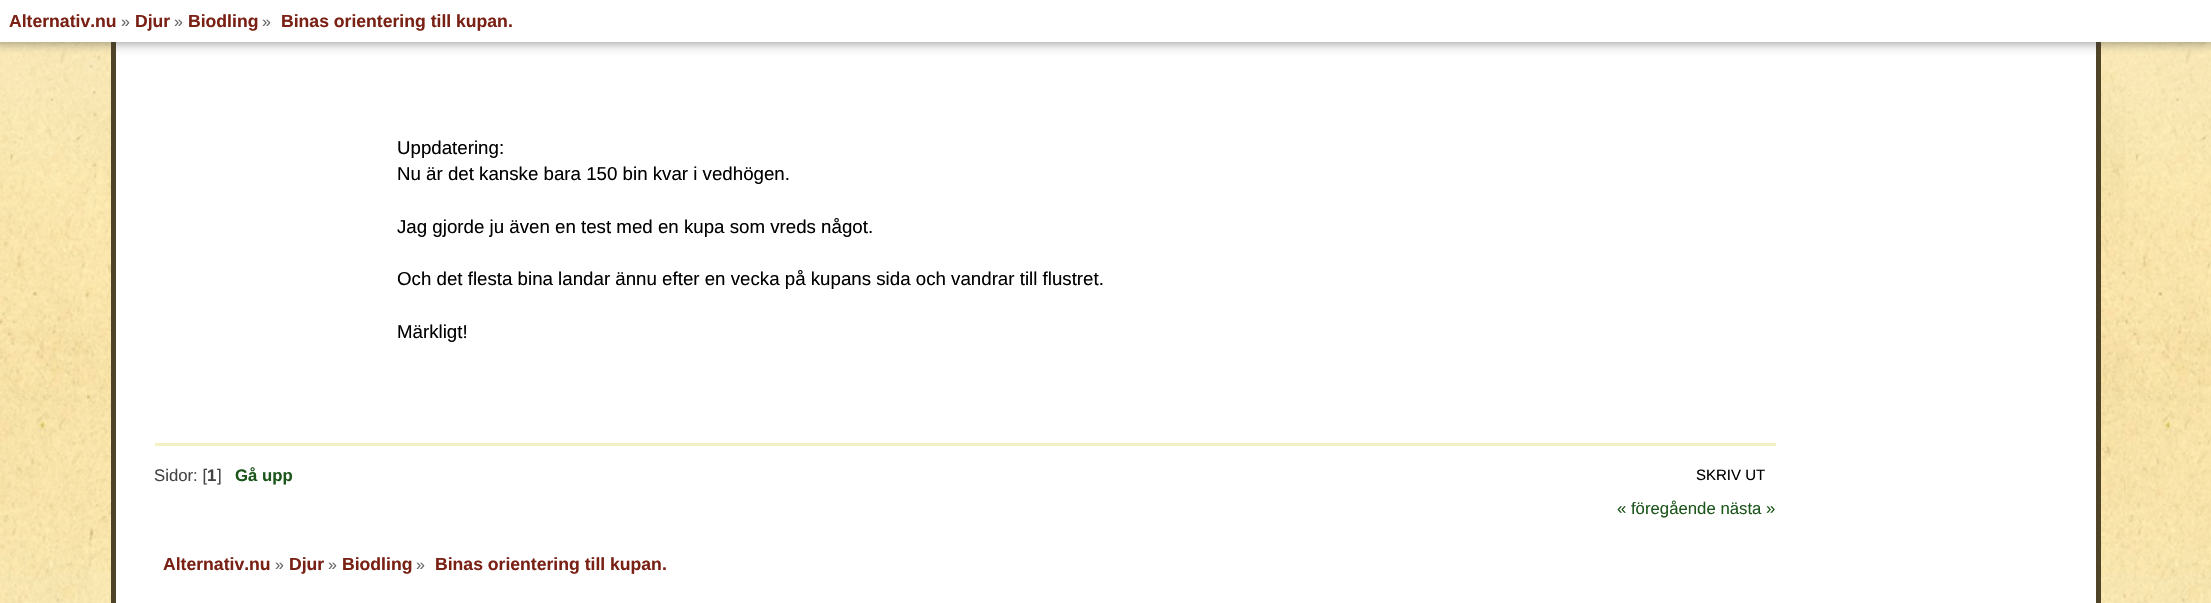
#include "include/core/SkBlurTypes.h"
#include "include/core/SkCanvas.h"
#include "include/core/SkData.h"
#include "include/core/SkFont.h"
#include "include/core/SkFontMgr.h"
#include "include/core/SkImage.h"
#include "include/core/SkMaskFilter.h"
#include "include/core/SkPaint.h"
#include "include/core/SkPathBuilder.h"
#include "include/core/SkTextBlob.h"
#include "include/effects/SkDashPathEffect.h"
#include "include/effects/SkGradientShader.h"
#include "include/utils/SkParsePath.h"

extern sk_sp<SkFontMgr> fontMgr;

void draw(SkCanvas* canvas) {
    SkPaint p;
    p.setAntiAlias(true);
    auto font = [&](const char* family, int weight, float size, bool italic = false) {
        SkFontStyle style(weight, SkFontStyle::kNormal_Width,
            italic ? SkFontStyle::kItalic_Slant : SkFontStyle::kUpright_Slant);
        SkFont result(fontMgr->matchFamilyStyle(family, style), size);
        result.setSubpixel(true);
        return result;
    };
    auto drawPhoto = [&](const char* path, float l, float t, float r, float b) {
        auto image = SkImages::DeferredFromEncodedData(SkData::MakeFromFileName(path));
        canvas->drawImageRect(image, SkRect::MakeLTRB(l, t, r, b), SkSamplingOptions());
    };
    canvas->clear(0xFFFFFFFF);
    drawPhoto("media/1.png", 0, 42, 2211, 603);
    {
        const struct { float l, t, r, b; SkColor color; } items[] = {
            {116, 42, 2096, 603, 0xFFFFFFFF},
            {111, 42, 116, 603, 0xFF504428},
            {2096, 42, 2101, 603, 0xFF504428},
        };
        for (auto [l, t, r, b, color] : items) {
            p.setColor(color);
            canvas->drawRect(SkRect::MakeLTRB(l, t, r, b), p);
        }
    }
    p.setColor(0x99323232);
    p.setMaskFilter(SkMaskFilter::MakeBlur(kNormal_SkBlurStyle, 6));
    canvas->drawRect(SkRect::MakeLTRB(-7, 0, 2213, 42), p);
    p.setMaskFilter(nullptr);
    p.setColor(0xFFFFFFFF);
    canvas->drawRect(SkRect::MakeLTRB(0, 0, 2211, 42), p);
    auto font1 = font("Liberation Sans", 700, 17.6f);
    p.setColor(0xFF7A2115);
    canvas->drawString("Alternativ.nu", 9, 27, font1, p);
    auto font2 = font("Liberation Sans", 400, 16);
    p.setColor(0xFF666666);
    canvas->drawString("»", 121, 27, font2, p);
    p.setColor(0xFF7A2115);
    canvas->drawString("Djur", 135, 27, font1, p);
    p.setColor(0xFF666666);
    canvas->drawString("»", 174, 27, font2, p);
    p.setColor(0xFF7A2115);
    canvas->drawString("Biodling", 188, 27, font1, p);
    p.setColor(0xFF666666);
    canvas->drawString("»", 262, 27, font2, p);
    p.setColor(0xFF7A2115);
    canvas->drawString("Binas orientering till kupan.", 281, 27, font1, p);
    p.setColor(0xFFF3F0C2);
    canvas->drawRect(SkRect::MakeLTRB(155, 443, 1776, 446), p);
    auto font3 = font("Liberation Sans", 400, 18.7f);
    p.setColor(0xFF000000);
    {
        const struct { const char* s; float x, y; } items[] = {
            {"Uppdatering:", 397, 154},
            {"Nu är det kanske bara 150 bin kvar i vedhögen.", 397, 180},
            {"Jag gjorde ju även en test med en kupa som vreds något.", 397, 233},
            {"Och det flesta bina landar ännu efter en vecka på kupans sida och vandrar till flustret.", 397, 285},
            {"Märkligt!", 397, 338},
        };
        for (auto [s, x, y] : items) {
            canvas->drawString(s, x, y, font3, p);
        }
    }
    auto font4 = font("Liberation Sans", 400, 16.75f);
    p.setColor(0xFF444444);
    canvas->drawString("Sidor: [", 154, 481, font4, p);
    auto font5 = font("Liberation Sans", 700, 16.75f);
    canvas->drawString("1", 207, 481, font5, p);
    canvas->drawString("]", 217, 481, font4, p);
    p.setColor(0xFF1D561B);
    canvas->drawString("Gå upp", 235, 481, font5, p);
    auto font6 = font("Liberation Sans", 400, 15);
    p.setColor(0xFF000000);
    canvas->drawString("SKRIV UT", 1696, 480, font6, p);
    p.setColor(0xFF1D561B);
    canvas->drawString("« föregående nästa »", 1617, 514, font4, p);
    p.setColor(0xFF7A2115);
    canvas->drawString("Alternativ.nu", 163, 570, font1, p);
    p.setColor(0xFF666666);
    canvas->drawString("»", 275, 570, font2, p);
    p.setColor(0xFF7A2115);
    canvas->drawString("Djur", 289, 570, font1, p);
    p.setColor(0xFF666666);
    canvas->drawString("»", 328, 570, font2, p);
    p.setColor(0xFF7A2115);
    canvas->drawString("Biodling", 342, 570, font1, p);
    p.setColor(0xFF666666);
    canvas->drawString("»", 416, 570, font2, p);
    p.setColor(0xFF7A2115);
    canvas->drawString("Binas orientering till kupan.", 435, 570, font1, p);
}
